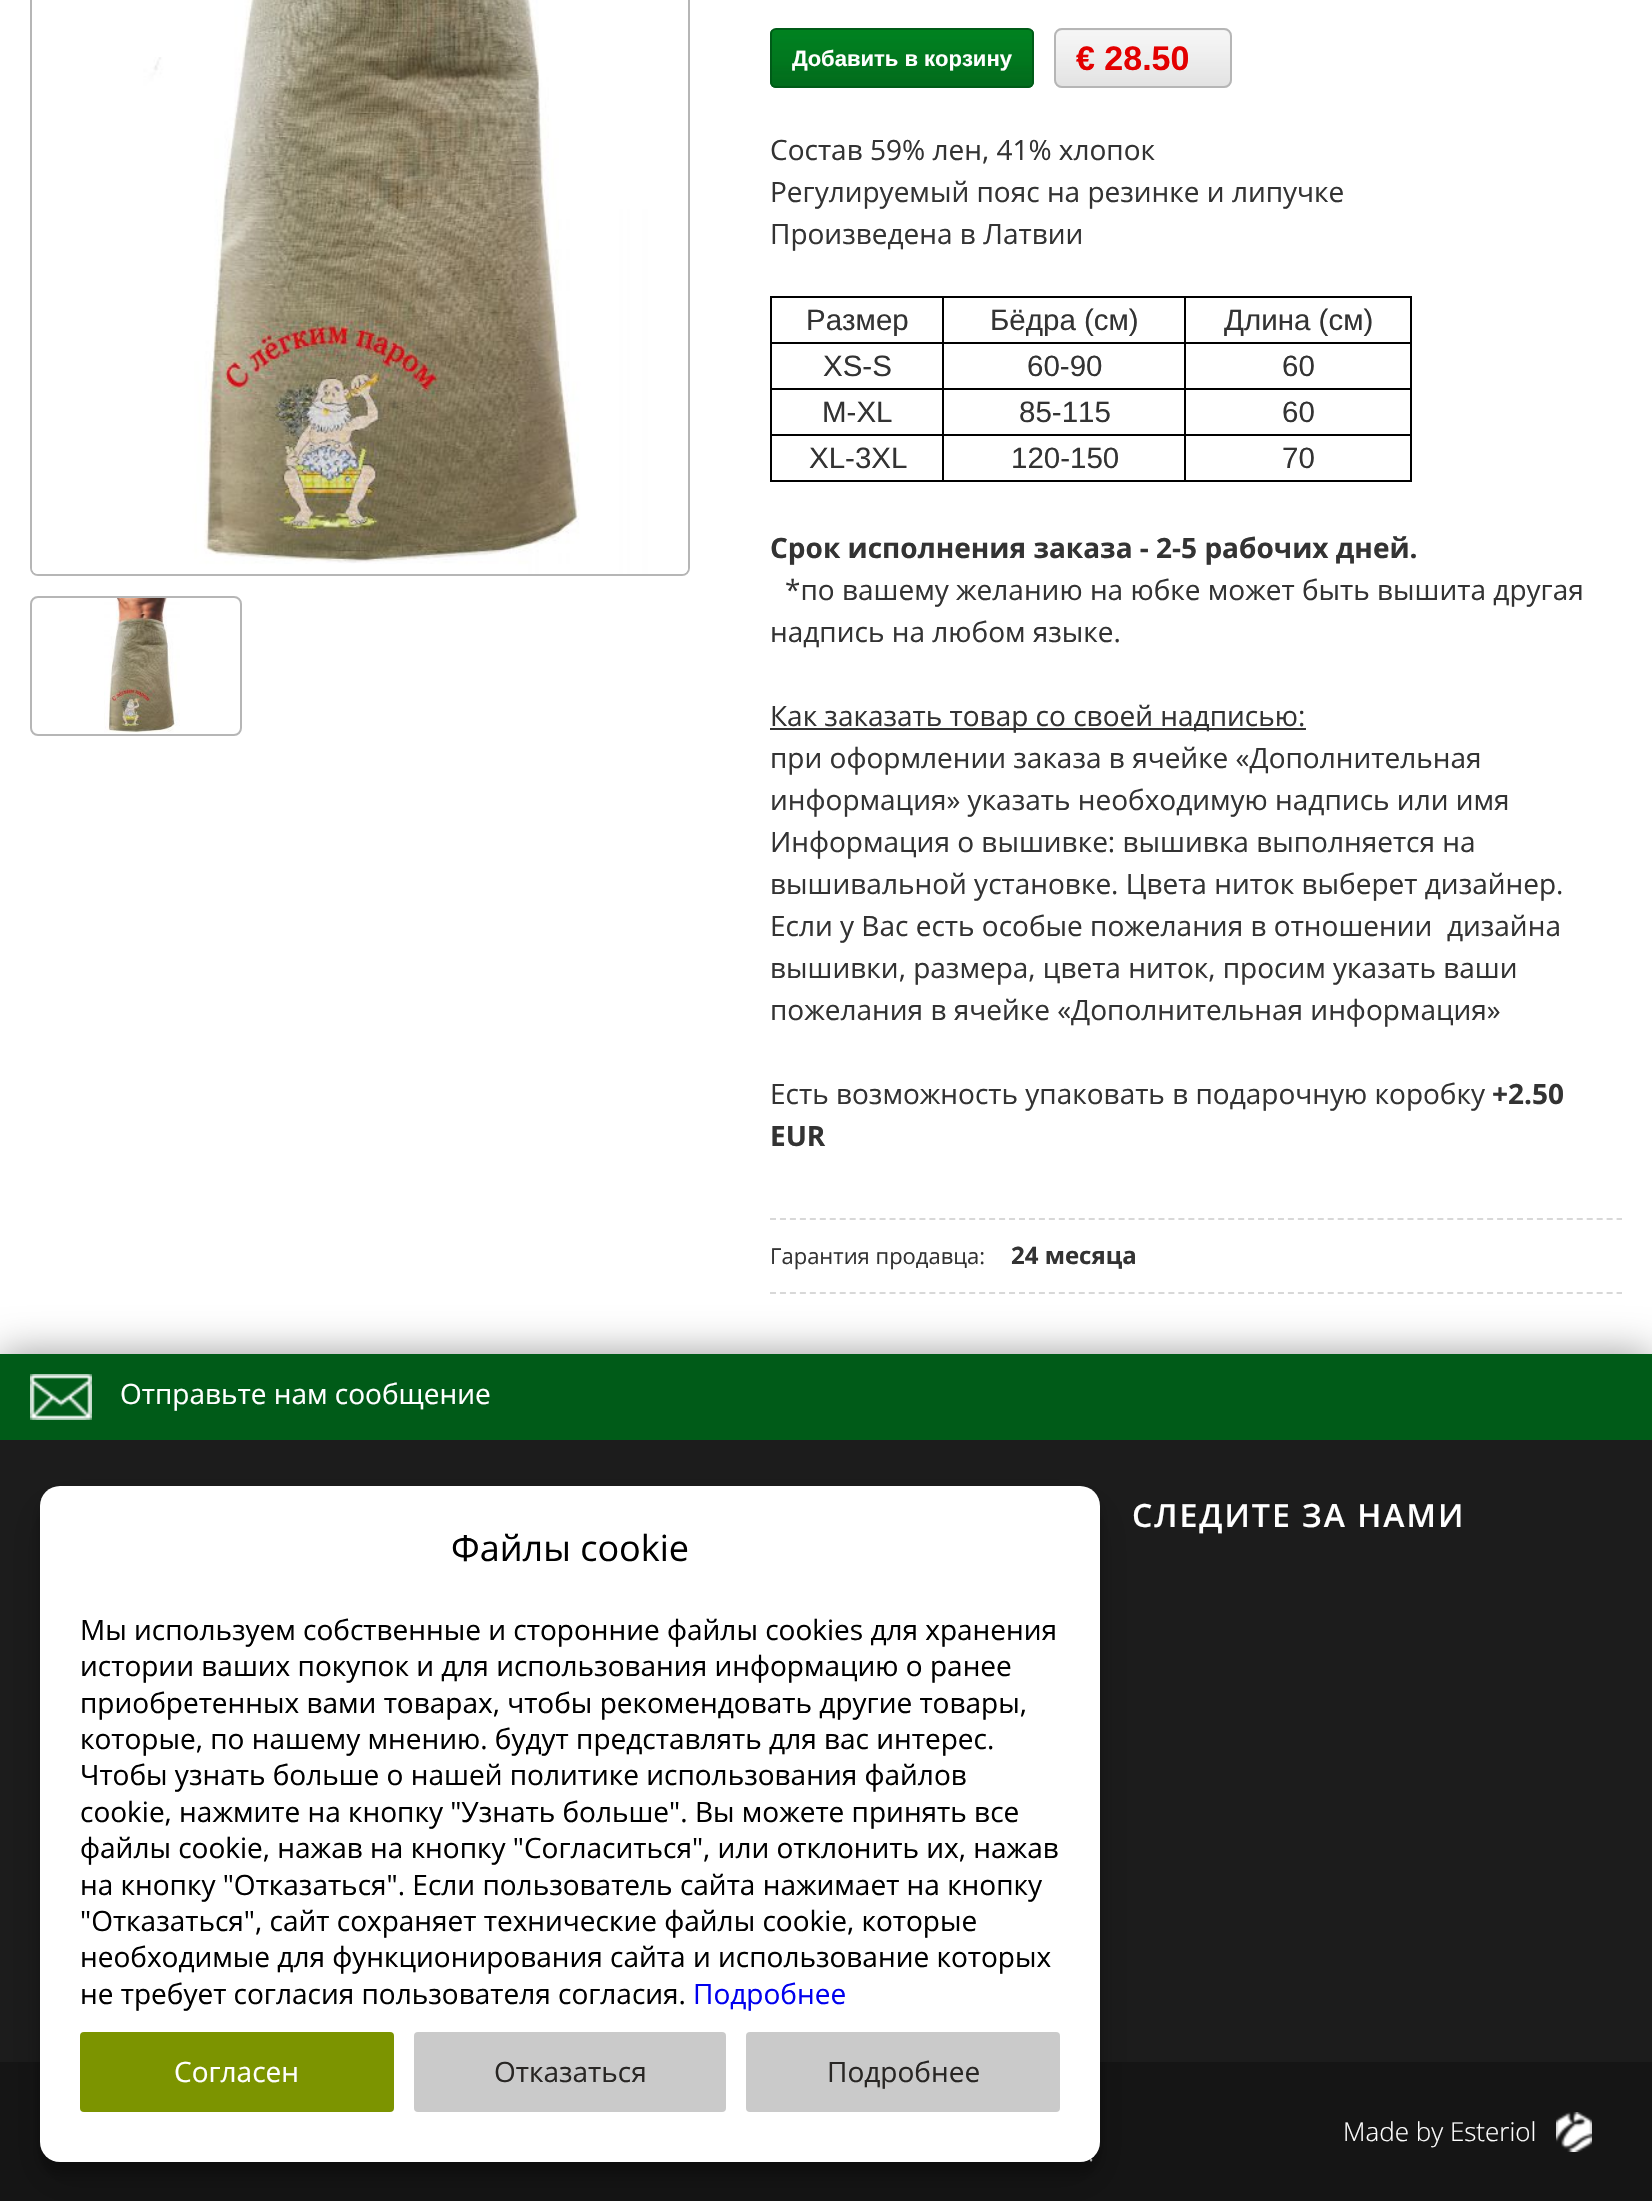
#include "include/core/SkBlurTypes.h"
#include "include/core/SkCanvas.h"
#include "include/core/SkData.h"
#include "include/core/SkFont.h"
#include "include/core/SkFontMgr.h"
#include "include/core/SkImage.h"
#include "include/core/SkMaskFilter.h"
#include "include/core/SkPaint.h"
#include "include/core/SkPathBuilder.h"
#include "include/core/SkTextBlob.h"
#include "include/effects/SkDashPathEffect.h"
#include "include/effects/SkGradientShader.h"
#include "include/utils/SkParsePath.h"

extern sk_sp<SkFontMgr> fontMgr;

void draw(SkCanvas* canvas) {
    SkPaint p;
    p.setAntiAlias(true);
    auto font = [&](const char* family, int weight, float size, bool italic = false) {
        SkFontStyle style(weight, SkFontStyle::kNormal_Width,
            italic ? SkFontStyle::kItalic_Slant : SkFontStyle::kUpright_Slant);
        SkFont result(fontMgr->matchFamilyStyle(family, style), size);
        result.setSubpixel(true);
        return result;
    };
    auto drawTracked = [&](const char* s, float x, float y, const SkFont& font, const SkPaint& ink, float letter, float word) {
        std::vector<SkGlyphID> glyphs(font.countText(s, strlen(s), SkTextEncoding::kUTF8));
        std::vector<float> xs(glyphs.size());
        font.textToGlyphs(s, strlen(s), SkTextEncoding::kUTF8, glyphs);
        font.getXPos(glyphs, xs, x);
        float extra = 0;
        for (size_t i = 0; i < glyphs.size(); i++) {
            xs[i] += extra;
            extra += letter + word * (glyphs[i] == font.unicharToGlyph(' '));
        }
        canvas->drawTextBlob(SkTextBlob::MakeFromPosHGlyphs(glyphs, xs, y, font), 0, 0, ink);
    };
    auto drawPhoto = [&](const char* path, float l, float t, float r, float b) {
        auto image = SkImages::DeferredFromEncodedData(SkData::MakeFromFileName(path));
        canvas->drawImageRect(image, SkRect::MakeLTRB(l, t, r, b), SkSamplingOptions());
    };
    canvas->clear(0xFFFFFFFF);
    p.setStyle(SkPaint::kStroke_Style);
    p.setStrokeWidth(2);
    p.setColor(0xFFB6B6B6);
    canvas->drawRoundRect(SkRect::MakeLTRB(31, -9, 689, 575), 7, 7, p);
    drawPhoto("media/1.png", 32, 0, 688, 574);
    canvas->drawRoundRect(SkRect::MakeLTRB(31, 597, 241, 735), 7, 7, p);
    drawPhoto("media/2.png", 104, 598, 180, 733);
    drawPhoto("media/3.png", 770, 30, 1034, 88);
    p.setColor(0xFF005B18);
    canvas->drawRoundRect(SkRect::MakeLTRB(771, 29, 1033, 87), 5, 5, p);
    auto font1 = font("Liberation Sans", 700, 22);
    p.setStyle(SkPaint::kFill_Style);
    p.setColor(0xFFFFFFFF);
    canvas->drawString("Добавить в корзину", 792, 66, font1, p);
    drawPhoto("media/4.png", 1054, 28, 1232, 88);
    p.setStyle(SkPaint::kStroke_Style);
    p.setColor(0xFFB6B6B6);
    canvas->drawRoundRect(SkRect::MakeLTRB(1055, 29, 1231, 87), 7, 7, p);
    auto font2 = font("Liberation Sans", 700, 34);
    p.setStyle(SkPaint::kFill_Style);
    p.setColor(0xFFE30000);
    canvas->drawString("€ 28.50", 1076, 70, font2, p);
    auto font3 = font("Open Sans", 400, 28);
    p.setColor(0xFF333333);
    {
        const struct { const char* s; float x, y; } items[] = {
            {"Состав 59% лен, 41% хлопок", 770, 160},
            {"Регулируемый пояс на резинке и липучке", 770, 202},
            {"Произведена в Латвии", 770, 244},
        };
        for (auto [s, x, y] : items) {
            canvas->drawString(s, x, y, font3, p);
        }
    }
    {
        const struct { float l, t, r, b; SkColor color; } items[] = {
            {770, 296, 1412, 298, 0xFF000000},
            {1410, 342, 1412, 482, 0xFF000000},
            {1410, 296, 1412, 344, 0xFF000000},
            {1184, 480, 1412, 482, 0xFF000000},
            {1184, 434, 1186, 482, 0xFF000000},
            {1184, 434, 1412, 436, 0xFF000000},
            {1184, 388, 1186, 436, 0xFF000000},
            {1184, 388, 1412, 390, 0xFF000000},
            {1184, 342, 1186, 390, 0xFF000000},
            {1184, 342, 1412, 344, 0xFF000000},
            {1184, 296, 1186, 344, 0xFF000000},
            {942, 480, 1186, 482, 0xFF000000},
            {942, 434, 944, 482, 0xFF000000},
            {942, 434, 1186, 436, 0xFF000000},
            {942, 388, 944, 436, 0xFF000000},
            {942, 388, 1186, 390, 0xFF000000},
            {942, 342, 944, 390, 0xFF000000},
            {942, 342, 1186, 344, 0xFF000000},
            {942, 296, 944, 344, 0xFF000000},
            {770, 480, 944, 482, 0xFF000000},
            {770, 434, 772, 482, 0xFF000000},
            {770, 434, 944, 436, 0xFF000000},
            {770, 388, 772, 436, 0xFF000000},
            {770, 388, 944, 390, 0xFF000000},
            {770, 342, 772, 390, 0xFF000000},
            {770, 342, 944, 344, 0xFF000000},
            {770, 296, 772, 344, 0xFF000000},
        };
        for (auto [l, t, r, b, color] : items) {
            p.setColor(color);
            canvas->drawRect(SkRect::MakeLTRB(l, t, r, b), p);
        }
    }
    auto font4 = font("Liberation Sans", 400, 29.5f);
    p.setColor(0xFF333333);
    {
        const struct { const char* s; float x, y; } items[] = {
            {"Размер", 806, 330},
            {"Бёдра (см)", 990, 330},
            {"Длина (см)", 1224, 330},
            {"XS-S", 823, 376},
            {"60-90", 1027, 376},
            {"60", 1282, 376},
            {"M-XL", 822, 422},
            {"85-115", 1019, 422},
            {"60", 1282, 422},
            {"XL-3XL", 809, 468},
            {"120-150", 1011, 468},
            {"70", 1282, 468},
        };
        for (auto [s, x, y] : items) {
            canvas->drawString(s, x, y, font4, p);
        }
    }
    auto font5 = font("Open Sans", 700, 28);
    canvas->drawString("Срок исполнения заказа - 2-5 рабочих дней.", 770, 558, font5, p);
    canvas->drawString("*по вашему желанию на юбке может быть вышита другая", 785, 600, font3, p);
    canvas->drawString("надпись на любом языке.", 770, 642, font3, p);
    canvas->drawRect(SkRect::MakeLTRB(770, 728, 1306, 730), p);
    {
        const struct { const char* s; float x, y; } items[] = {
            {"Как заказать товар со своей надписью:", 770, 726},
            {"при оформлении заказа в ячейке «Дополнительная", 770, 768},
            {"информация» указать необходимую надпись или имя", 770, 810},
            {"Информация о вышивке: вышивка выполняется на", 770, 852},
            {"вышивальной установке. Цвета ниток выберет дизайнер.", 770, 894},
            {"Если у Вас есть особые пожелания в отношении  дизайна", 770, 936},
            {"вышивки, размера, цвета ниток, просим указать ваши", 770, 978},
            {"пожелания в ячейке «Дополнительная информация»", 770, 1020},
            {"Есть возможность упаковать в подарочную коробку", 770, 1104},
        };
        for (auto [s, x, y] : items) {
            canvas->drawString(s, x, y, font3, p);
        }
    }
    canvas->drawString("+2.50", 1492, 1104, font5, p);
    canvas->drawString("EUR", 770, 1146, font5, p);
    p.setStyle(SkPaint::kStroke_Style);
    p.setColor(0xFFD8D8D8);
    p.setPathEffect(SkDashPathEffect::Make({{6, 3.96f}}, 0));
    canvas->drawPath(SkPathBuilder().moveTo(770, 1219).lineTo(1622, 1219).detach(), p);
    p.setPathEffect(nullptr);
    auto font6 = font("Open Sans", 400, 22);
    p.setStyle(SkPaint::kFill_Style);
    p.setColor(0xFF333333);
    canvas->drawString("Гарантия продавца:", 770, 1264, font6, p);
    auto font7 = font("Open Sans", 700, 24);
    canvas->drawString("24 месяца", 1011, 1264, font7, p);
    p.setColor(0x66000000);
    p.setMaskFilter(SkMaskFilter::MakeBlur(kNormal_SkBlurStyle, 20));
    canvas->drawRect(SkRect::MakeLTRB(0, 1354, 1652, 1440), p);
    p.setMaskFilter(nullptr);
    p.setStyle(SkPaint::kStroke_Style);
    p.setColor(0xFFD8D8D8);
    p.setPathEffect(SkDashPathEffect::Make({{6, 3.96f}}, 0));
    canvas->drawPath(SkPathBuilder().moveTo(770, 1293).lineTo(1622, 1293).detach(), p);
    p.setPathEffect(nullptr);
    p.setStyle(SkPaint::kFill_Style);
    p.setColor(0xFF005B18);
    canvas->drawRect(SkRect::MakeLTRB(0, 1354, 1652, 1440), p);
    drawPhoto("media/5.png", 30, 1374, 92, 1420);
    p.setColor(0xFFFFFFFF);
    canvas->drawString("Отправьте нам сообщение", 120, 1404, font3, p);
    p.setColor(0xFF1C1C1C);
    canvas->drawRect(SkRect::MakeLTRB(0, 1440, 1652, 2062), p);
    auto font8 = font("Open Sans", 600, 32);
    p.setColor(0xFFFFFFFF);
    drawTracked("СЛЕДИТЕ ЗА НАМИ", 1132, 1527, font8, p, 2, 0);
    p.setColor(0xFF151515);
    canvas->drawRect(SkRect::MakeLTRB(0, 2062, 1652, 2201), p);
    auto font9 = font("Open Sans", 300, 26);
    p.setColor(0xFFFFFFFF);
    canvas->drawString("Made by Esteriol", 1343, 2141, font9, p);
    drawPhoto("media/6.png", 1556, 2112, 1592, 2152);
    canvas->drawString(".", 1088, 2161, font9, p);
    p.setColor(0x3B000000);
    p.setMaskFilter(SkMaskFilter::MakeBlur(kNormal_SkBlurStyle, 6));
    canvas->drawRoundRect(SkRect::MakeLTRB(40, 1498, 1100, 2174), 20, 20, p);
    p.setMaskFilter(nullptr);
    p.setColor(0x30000000);
    p.setMaskFilter(SkMaskFilter::MakeBlur(kNormal_SkBlurStyle, 20));
    canvas->drawRoundRect(SkRect::MakeLTRB(40, 1506, 1100, 2182), 20, 20, p);
    p.setMaskFilter(nullptr);
    p.setColor(0xFFFFFFFF);
    canvas->drawRoundRect(SkRect::MakeLTRB(40, 1486, 1100, 2162), 20, 20, p);
    auto font10 = font("Open Sans", 400, 36);
    p.setColor(0xFF000000);
    canvas->drawString("Файлы cookie", 451, 1561, font10, p);
    {
        const struct { const char* s; float x, y; } items[] = {
            {"Мы используем собственные и сторонние файлы cookies для хранения", 80, 1640},
            {"истории ваших покупок и для использования информацию о ранее", 80, 1676},
            {"приобретенных вами товарах, чтобы рекомендовать другие товары,", 80, 1713},
            {"которые, по нашему мнению. будут представлять для вас интерес.", 80, 1749},
            {"Чтобы узнать больше о нашей политике использования файлов", 80, 1785},
            {"cookie, нажмите на кнопку \"Узнать больше\". Вы можете принять все", 80, 1822},
            {"файлы cookie, нажав на кнопку \"Согласиться\", или отклонить их, нажав", 80, 1858},
            {"на кнопку \"Отказаться\". Если пользователь сайта нажимает на кнопку", 80, 1895},
            {"\"Отказаться\", сайт сохраняет технические файлы cookie, которые", 80, 1931},
            {"необходимые для функционирования сайта и использование которых", 80, 1967},
            {"не требует согласия пользователя согласия.", 80, 2004},
        };
        for (auto [s, x, y] : items) {
            canvas->drawString(s, x, y, font3, p);
        }
    }
    p.setColor(0xFF0000EE);
    canvas->drawString("Подробнее", 693, 2004, font3, p);
    p.setColor(0xFF7C9400);
    canvas->drawRoundRect(SkRect::MakeLTRB(80, 2032, 394, 2112), 4, 4, p);
    p.setColor(0xFFFFFFFF);
    canvas->drawString("Согласен", 174, 2082, font3, p);
    p.setColor(0xFFCACACA);
    canvas->drawRoundRect(SkRect::MakeLTRB(414, 2032, 726, 2112), 4, 4, p);
    p.setColor(0xFF282624);
    canvas->drawString("Отказаться", 494, 2082, font3, p);
    p.setColor(0xFFCACACA);
    canvas->drawRoundRect(SkRect::MakeLTRB(746, 2032, 1060, 2112), 4, 4, p);
    p.setColor(0xFF282624);
    canvas->drawString("Подробнее", 827, 2082, font3, p);
}
